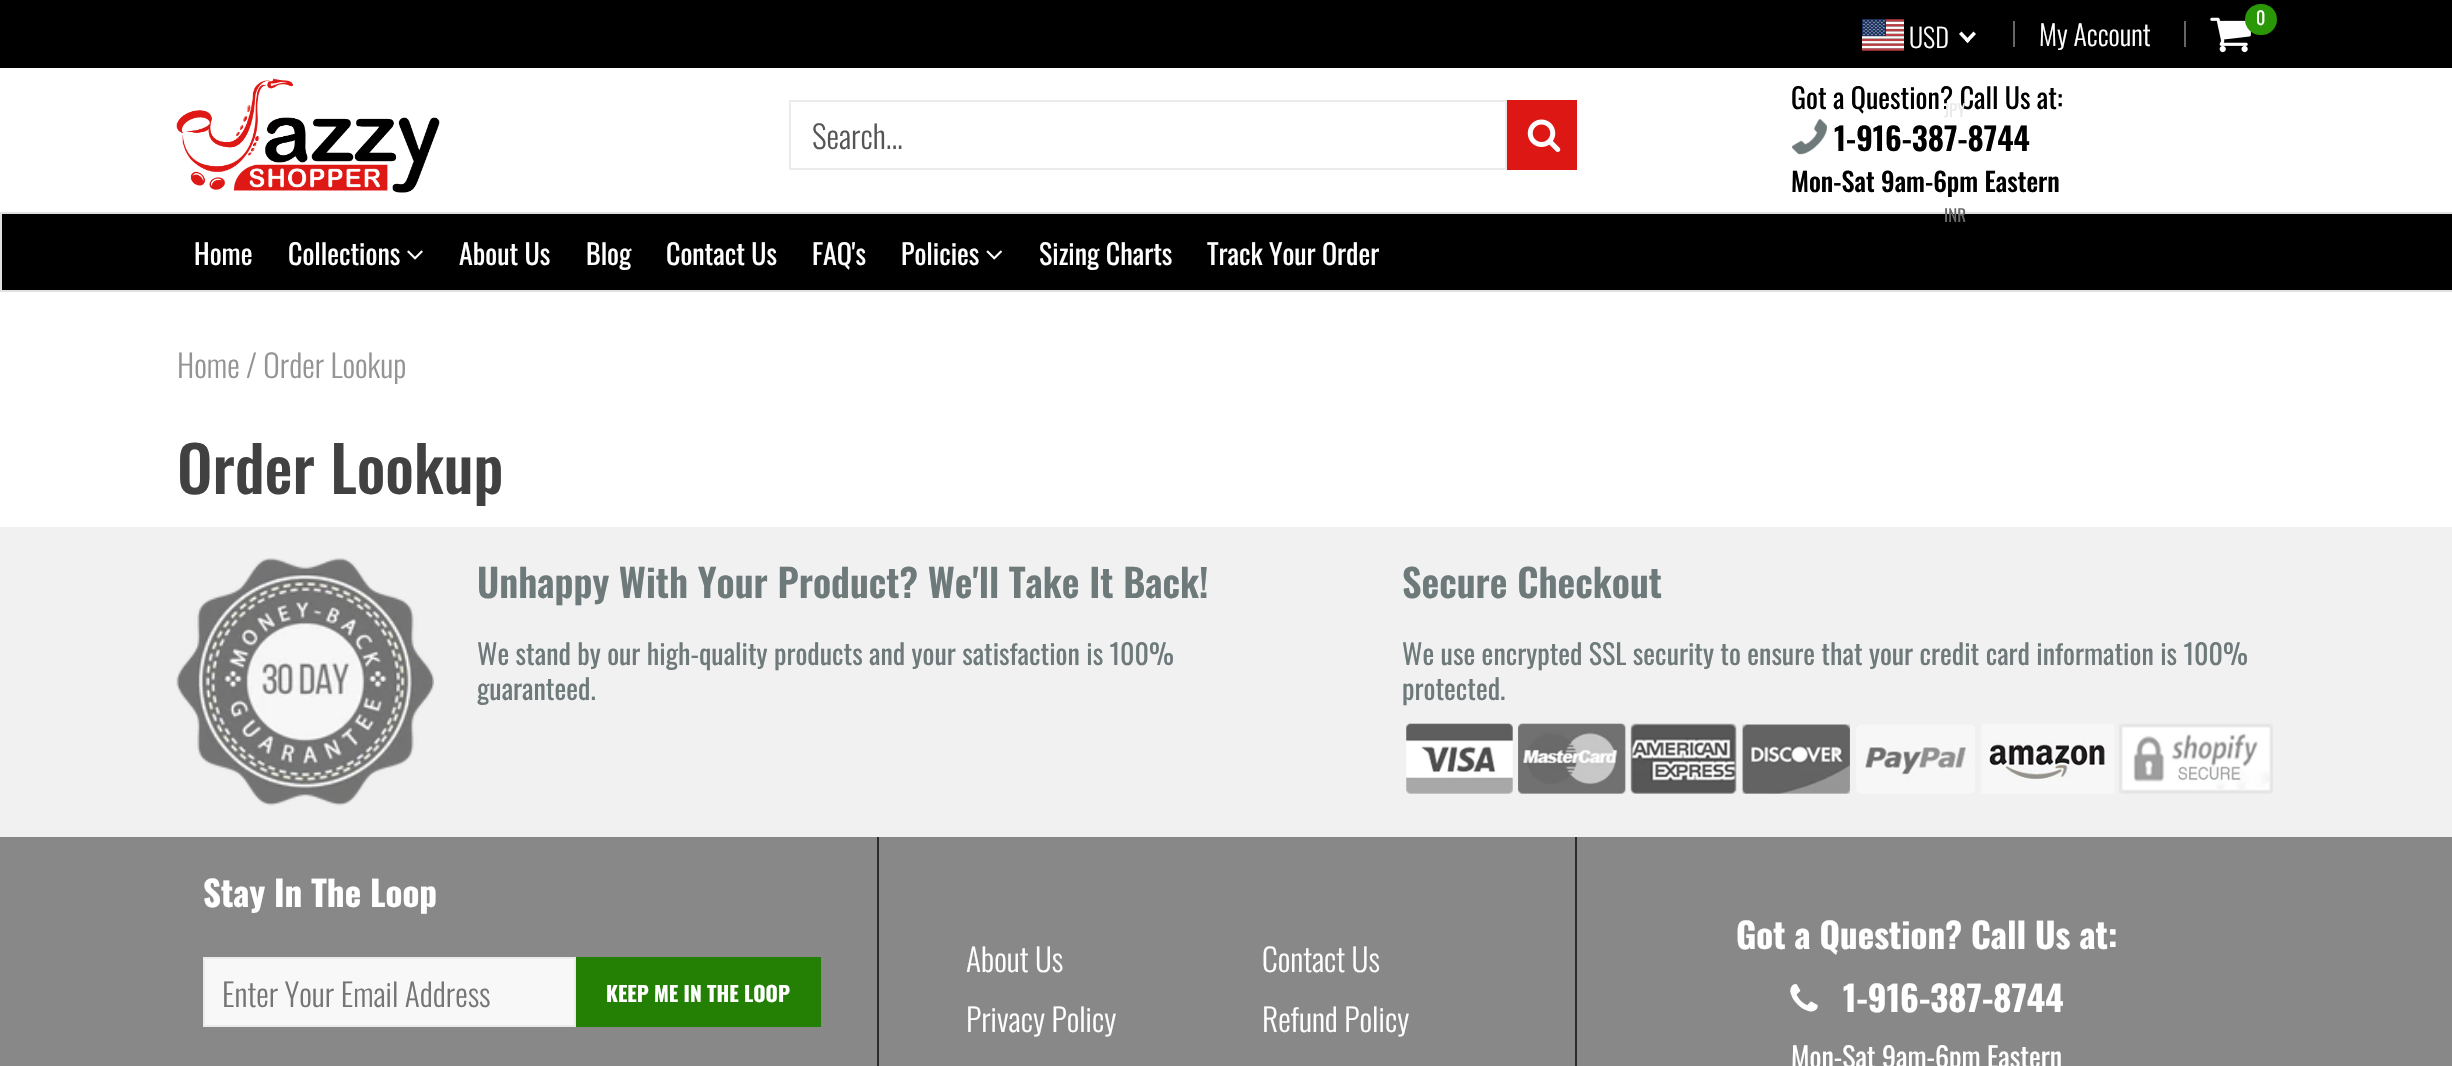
#include "include/core/SkBlurTypes.h"
#include "include/core/SkCanvas.h"
#include "include/core/SkData.h"
#include "include/core/SkFont.h"
#include "include/core/SkFontMgr.h"
#include "include/core/SkImage.h"
#include "include/core/SkMaskFilter.h"
#include "include/core/SkPaint.h"
#include "include/core/SkPathBuilder.h"
#include "include/core/SkTextBlob.h"
#include "include/effects/SkDashPathEffect.h"
#include "include/effects/SkGradientShader.h"
#include "include/utils/SkParsePath.h"

extern sk_sp<SkFontMgr> fontMgr;

void draw(SkCanvas* canvas) {
    SkPaint p;
    p.setAntiAlias(true);
    auto font = [&](const char* family, int weight, float size, bool italic = false) {
        SkFontStyle style(weight, SkFontStyle::kNormal_Width,
            italic ? SkFontStyle::kItalic_Slant : SkFontStyle::kUpright_Slant);
        SkFont result(fontMgr->matchFamilyStyle(family, style), size);
        result.setSubpixel(true);
        return result;
    };
    auto drawPhoto = [&](const char* path, float l, float t, float r, float b) {
        auto image = SkImages::DeferredFromEncodedData(SkData::MakeFromFileName(path));
        canvas->drawImageRect(image, SkRect::MakeLTRB(l, t, r, b), SkSamplingOptions());
    };
    canvas->clear(0xFFFFFFFF);
    drawPhoto("media/1.png", 176, 78, 440, 193);
    p.setStyle(SkPaint::kStroke_Style);
    p.setStrokeWidth(2);
    p.setColor(0xFFEBEBEB);
    canvas->drawRect(SkRect::MakeLTRB(790, 101, 1506, 169), p);
    auto font1 = font("Oswald", 300, 31.5f);
    p.setStyle(SkPaint::kFill_Style);
    p.setColor(0xFF555555);
    canvas->drawString("Search...", 812, 149, font1, p);
    p.setColor(0xFFDD1814);
    canvas->drawRect(SkRect::MakeLTRB(1507, 100, 1577, 170), p);
    drawPhoto("media/2.png", 1527, 119, 1561, 152);
    auto font2 = font("Oswald", 400, 28);
    p.setColor(0xFF000000);
    canvas->drawString("Got a Question? Call Us at:", 1791, 109, font2, p);
    drawPhoto("media/3.png", 1792, 119, 1827, 155);
    auto font3 = font("Oswald", 600, 31.5f);
    canvas->drawString("1-916-387-8744", 1834, 151, font3, p);
    auto font4 = font("Oswald", 500, 26.25f);
    canvas->drawString("Mon-Sat 9am-6pm Eastern", 1791, 192, font4, p);
    canvas->drawRect(SkRect::MakeLTRB(0, 0, 2452, 68), p);
    p.setColor(0xFF666666);
    canvas->drawRect(SkRect::MakeLTRB(2184, 21, 2186, 47), p);
    drawPhoto("media/4.png", 2210, 17, 2251, 53);
    p.setColor(0xFF2A9806);
    canvas->drawRoundRect(SkRect::MakeLTRB(2245, 4, 2277, 35), 15.5f, 15.5f, p);
    auto font5 = font("Oswald", 400, 18);
    p.setColor(0xFFFFFFFF);
    canvas->drawString("0", 2256, 25, font5, p);
    drawPhoto("media/5.png", 1862, 19, 1904, 51);
    auto font6 = font("Oswald", 300, 26.25f);
    canvas->drawString("USD", 1909, 48, font6, p);
    canvas->drawPath(SkPathBuilder().moveTo(1973.5f, 31.5f).lineTo(1976, 34).lineTo(1967.5f, 43).lineTo(1965, 40.5f).close().detach(), p);
    canvas->drawPath(SkPathBuilder().moveTo(1961.5f, 31.5f).lineTo(1970, 40.5f).lineTo(1967.5f, 43).lineTo(1959, 34).close().detach(), p);
    auto font7 = font("Oswald", 400, 17);
    p.setColor(0xFFEAEAEA);
    canvas->drawString("JPY", 1944, 117, font7, p);
    p.setColor(0xFF000000);
    canvas->drawRect(SkRect::MakeLTRB(1, 213, 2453, 291), p);
    p.setStyle(SkPaint::kStroke_Style);
    p.setColor(0xFFE1E1E1);
    canvas->drawRect(SkRect::MakeLTRB(1, 213, 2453, 291), p);
    p.setStyle(SkPaint::kFill_Style);
    p.setColor(0xFF696969);
    canvas->drawString("INR", 1944, 222, font7, p);
    p.setColor(0xFF666666);
    canvas->drawRect(SkRect::MakeLTRB(2013, 21, 2015, 47), p);
    auto font8 = font("Oswald", 300, 28);
    p.setColor(0xFFFFFFFF);
    canvas->drawString("My Account", 2039, 46, font8, p);
    canvas->drawString("Home", 194, 265, font2, p);
    canvas->drawString("Collections", 288, 265, font2, p);
    drawPhoto("media/6.png", 407, 250, 423, 260);
    {
        const struct { const char* s; float x, y; } items[] = {
            {"About Us", 459, 265},
            {"Blog", 586, 265},
            {"Contact Us", 666, 265},
            {"FAQ's", 812, 265},
            {"Policies", 901, 265},
        };
        for (auto [s, x, y] : items) {
            canvas->drawString(s, x, y, font2, p);
        }
    }
    drawPhoto("media/7.png", 986, 250, 1002, 260);
    canvas->drawString("Sizing Charts", 1039, 265, font2, p);
    canvas->drawString("Track Your Order", 1207, 265, font2, p);
    p.setColor(0xFF949494);
    canvas->drawString("Home", 177, 378, font1, p);
    canvas->drawString("/ Order Lookup", 246, 378, font1, p);
    auto font9 = font("Oswald", 500, 63);
    p.setColor(0xFF414141);
    canvas->drawString("Order Lookup", 177, 494, font9, p);
    p.setColor(0xFFF1F1F1);
    canvas->drawRect(SkRect::MakeLTRB(0, 527, 2452, 837), p);
    drawPhoto("media/8.png", 176, 558, 434, 806);
    auto font10 = font("Oswald", 600, 38.5f);
    p.setColor(0xFF6E797A);
    canvas->drawString("Unhappy With Your Product? We'll Take It Back!", 477, 598, font10, p);
    canvas->drawString("We stand by our high-quality products and your satisfaction is 100%", 477, 665, font2, p);
    canvas->drawString("guaranteed.", 477, 700, font2, p);
    canvas->drawString("Secure Checkout", 1402, 598, font10, p);
    canvas->drawString("We use encrypted SSL security to ensure that your credit card information is 100%", 1402, 665, font2, p);
    canvas->drawString("protected.", 1402, 700, font2, p);
    drawPhoto("media/9.png", 1406, 723, 2273, 794);
    p.setColor(0xFF888888);
    canvas->drawRect(SkRect::MakeLTRB(0, 837, 2452, 1066), p);
    auto font11 = font("Oswald", 700, 35);
    p.setColor(0xFFFFFFFF);
    canvas->drawString("Stay In The Loop", 203, 907, font11, p);
    p.setColor(0xFFF8F8F8);
    canvas->drawRect(SkRect::MakeLTRB(204, 958, 575, 1026), p);
    p.setStyle(SkPaint::kStroke_Style);
    p.setColor(0xFFEBEBEB);
    canvas->drawRect(SkRect::MakeLTRB(204, 958, 575, 1026), p);
    p.setStyle(SkPaint::kFill_Style);
    p.setColor(0xFF757575);
    canvas->drawString("Enter Your Email Address", 222, 1007, font1, p);
    p.setColor(0xFF248005);
    canvas->drawRect(SkRect::MakeLTRB(576, 957, 821, 1027), p);
    auto font12 = font("Oswald", 700, 21);
    p.setColor(0xFFFFFFFF);
    canvas->drawString("KEEP ME IN THE LOOP", 606, 1002, font12, p);
    p.setColor(0xFF2B2B2B);
    canvas->drawRect(SkRect::MakeLTRB(1575, 837, 1577, 1066), p);
    canvas->drawRect(SkRect::MakeLTRB(877, 837, 879, 1066), p);
    p.setColor(0xFFFFFFFF);
    {
        const struct { const char* s; float x, y; } items[] = {
            {"About Us", 966, 972},
            {"Contact Us", 1262, 972},
            {"Privacy Policy", 966, 1032},
            {"Refund Policy", 1262, 1032},
        };
        for (auto [s, x, y] : items) {
            canvas->drawString(s, x, y, font1, p);
        }
    }
    canvas->drawString("Got a Question? Call Us at:", 1736, 949, font11, p);
    drawPhoto("media/10.png", 1790, 984, 1818, 1012);
    canvas->drawString("1-916-387-8744", 1843, 1012, font11, p);
    canvas->drawString("Mon-Sat 9am-6pm Eastern", 1791, 1068, font2, p);
}
